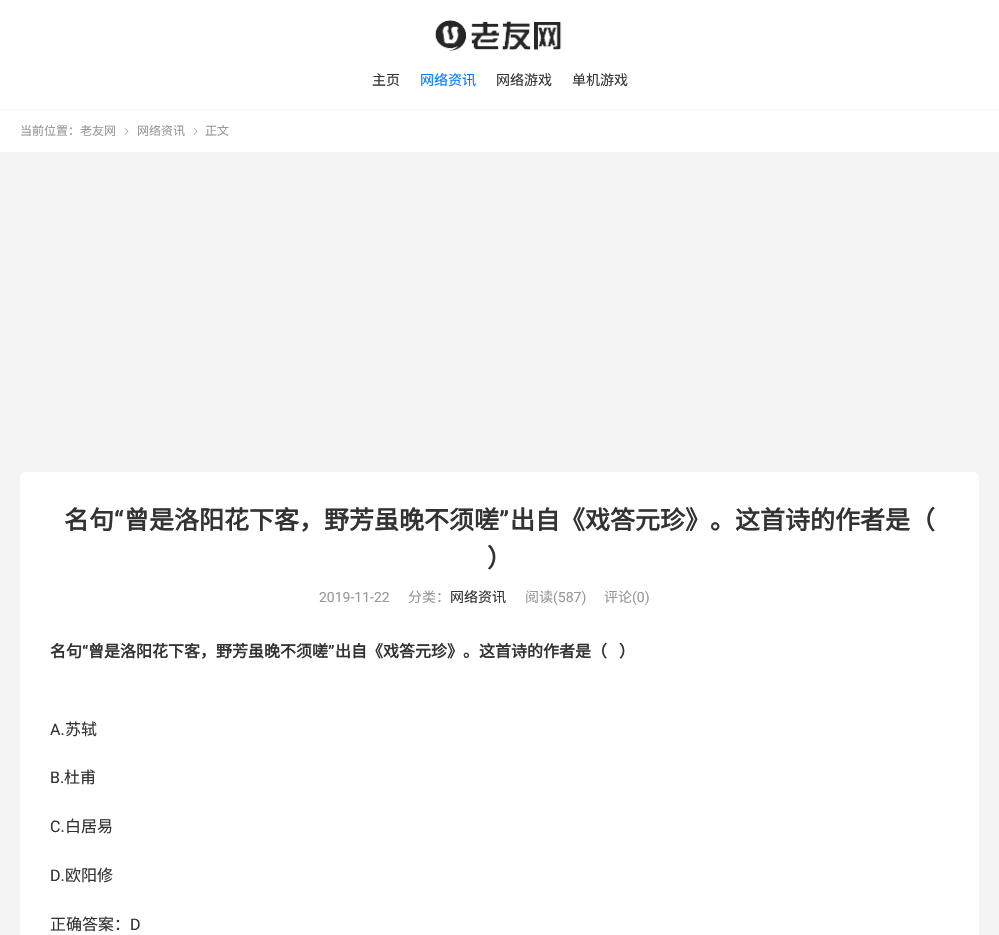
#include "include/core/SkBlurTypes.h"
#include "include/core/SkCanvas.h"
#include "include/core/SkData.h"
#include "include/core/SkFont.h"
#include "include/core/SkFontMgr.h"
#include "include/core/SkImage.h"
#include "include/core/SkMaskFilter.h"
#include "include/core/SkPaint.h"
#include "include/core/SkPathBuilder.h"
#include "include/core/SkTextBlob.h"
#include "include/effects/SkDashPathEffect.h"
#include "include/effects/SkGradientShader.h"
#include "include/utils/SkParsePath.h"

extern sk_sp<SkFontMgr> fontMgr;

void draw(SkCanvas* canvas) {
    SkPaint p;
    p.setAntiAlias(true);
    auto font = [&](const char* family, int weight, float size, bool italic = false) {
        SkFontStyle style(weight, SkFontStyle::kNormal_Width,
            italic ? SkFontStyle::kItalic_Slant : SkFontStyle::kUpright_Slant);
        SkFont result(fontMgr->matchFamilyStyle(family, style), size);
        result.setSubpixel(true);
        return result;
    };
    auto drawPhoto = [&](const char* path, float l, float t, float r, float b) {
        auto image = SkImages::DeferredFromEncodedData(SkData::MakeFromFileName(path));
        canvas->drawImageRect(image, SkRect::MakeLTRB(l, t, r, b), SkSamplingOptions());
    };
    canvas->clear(0xFFF4F4F4);
    p.setColor(0xFFFFFFFF);
    canvas->drawRect(SkRect::MakeLTRB(0, 0, 999, 109), p);
    drawPhoto("media/1.png", 435, 20, 562, 52);
    auto font1 = font("Noto Sans CJK SC", 400, 14);
    p.setColor(0xFF333333);
    canvas->drawString("主页", 372, 85, font1, p);
    p.setColor(0xFF007BFF);
    canvas->drawString("网络资讯", 420, 85, font1, p);
    p.setColor(0xFF333333);
    canvas->drawString("网络游戏", 496, 85, font1, p);
    canvas->drawString("单机游戏", 572, 85, font1, p);
    p.setColor(0xFFFFFFFF);
    canvas->drawRect(SkRect::MakeLTRB(0, 110, 999, 152), p);
    p.setColor(0xFFFAFAFA);
    canvas->drawRect(SkRect::MakeLTRB(0, 109, 999, 110), p);
    auto font2 = font("Noto Sans CJK SC", 400, 12);
    p.setColor(0xFF999999);
    canvas->drawString("当前位置：老友网", 20, 135, font2, p);
    drawPhoto("media/2.png", 124, 128, 129, 135);
    canvas->drawString("网络资讯", 137, 135, font2, p);
    drawPhoto("media/2.png", 193, 128, 198, 135);
    canvas->drawString("正文", 205, 135, font2, p);
    p.setColor(0xFFFFFFFF);
    canvas->drawRoundRect(SkRect::MakeLTRB(20, 472, 979, 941), 6, 6, p);
    auto font3 = font("Noto Sans CJK SC", 700, 25);
    p.setColor(0xFF333333);
    canvas->drawString("名句", 64, 529, font3, p);
    auto font4 = font("Roboto", 700, 25);
    canvas->drawString("“", 114, 529, font4, p);
    canvas->drawString("曾是洛阳花下客，野芳虽晚不须嗟", 124, 529, font3, p);
    canvas->drawString("”", 499, 529, font4, p);
    canvas->drawString("出自《戏答元珍》。这首诗的作者是（", 510, 529, font3, p);
    canvas->drawString("）", 487, 567, font3, p);
    auto font5 = font("Roboto", 400, 14);
    p.setColor(0xFF999999);
    canvas->drawString("2019-11-22", 319, 602, font5, p);
    canvas->drawString("分类：", 408, 602, font1, p);
    p.setColor(0xFF333333);
    canvas->drawString("网络资讯", 450, 602, font1, p);
    p.setColor(0xFF999999);
    canvas->drawString("阅读", 525, 602, font1, p);
    canvas->drawString("(587)", 553, 602, font5, p);
    canvas->drawString("评论", 604, 602, font1, p);
    canvas->drawString("(0)", 632, 602, font5, p);
    auto font6 = font("Noto Sans CJK SC", 700, 16);
    p.setColor(0xFF333333);
    canvas->drawString("名句", 50, 657, font6, p);
    auto font7 = font("Roboto", 700, 16);
    canvas->drawString("“", 82, 657, font7, p);
    canvas->drawString("曾是洛阳花下客，野芳虽晚不须嗟", 88, 657, font6, p);
    canvas->drawString("”", 328, 657, font7, p);
    canvas->drawString("出自《戏答元珍》。这首诗的作者是（", 335, 657, font6, p);
    canvas->drawString("）", 619, 657, font6, p);
    auto font8 = font("Roboto", 400, 16);
    canvas->drawString("A.", 50, 735, font8, p);
    auto font9 = font("Noto Sans CJK SC", 400, 16);
    canvas->drawString("苏轼", 65, 735, font9, p);
    canvas->drawString("B.", 50, 783, font8, p);
    canvas->drawString("杜甫", 64, 783, font9, p);
    canvas->drawString("C.", 50, 832, font8, p);
    canvas->drawString("白居易", 65, 832, font9, p);
    canvas->drawString("D.", 50, 881, font8, p);
    canvas->drawString("欧阳修", 65, 881, font9, p);
    canvas->drawString("正确答案：", 50, 930, font9, p);
    canvas->drawString("D", 130, 930, font8, p);
}
